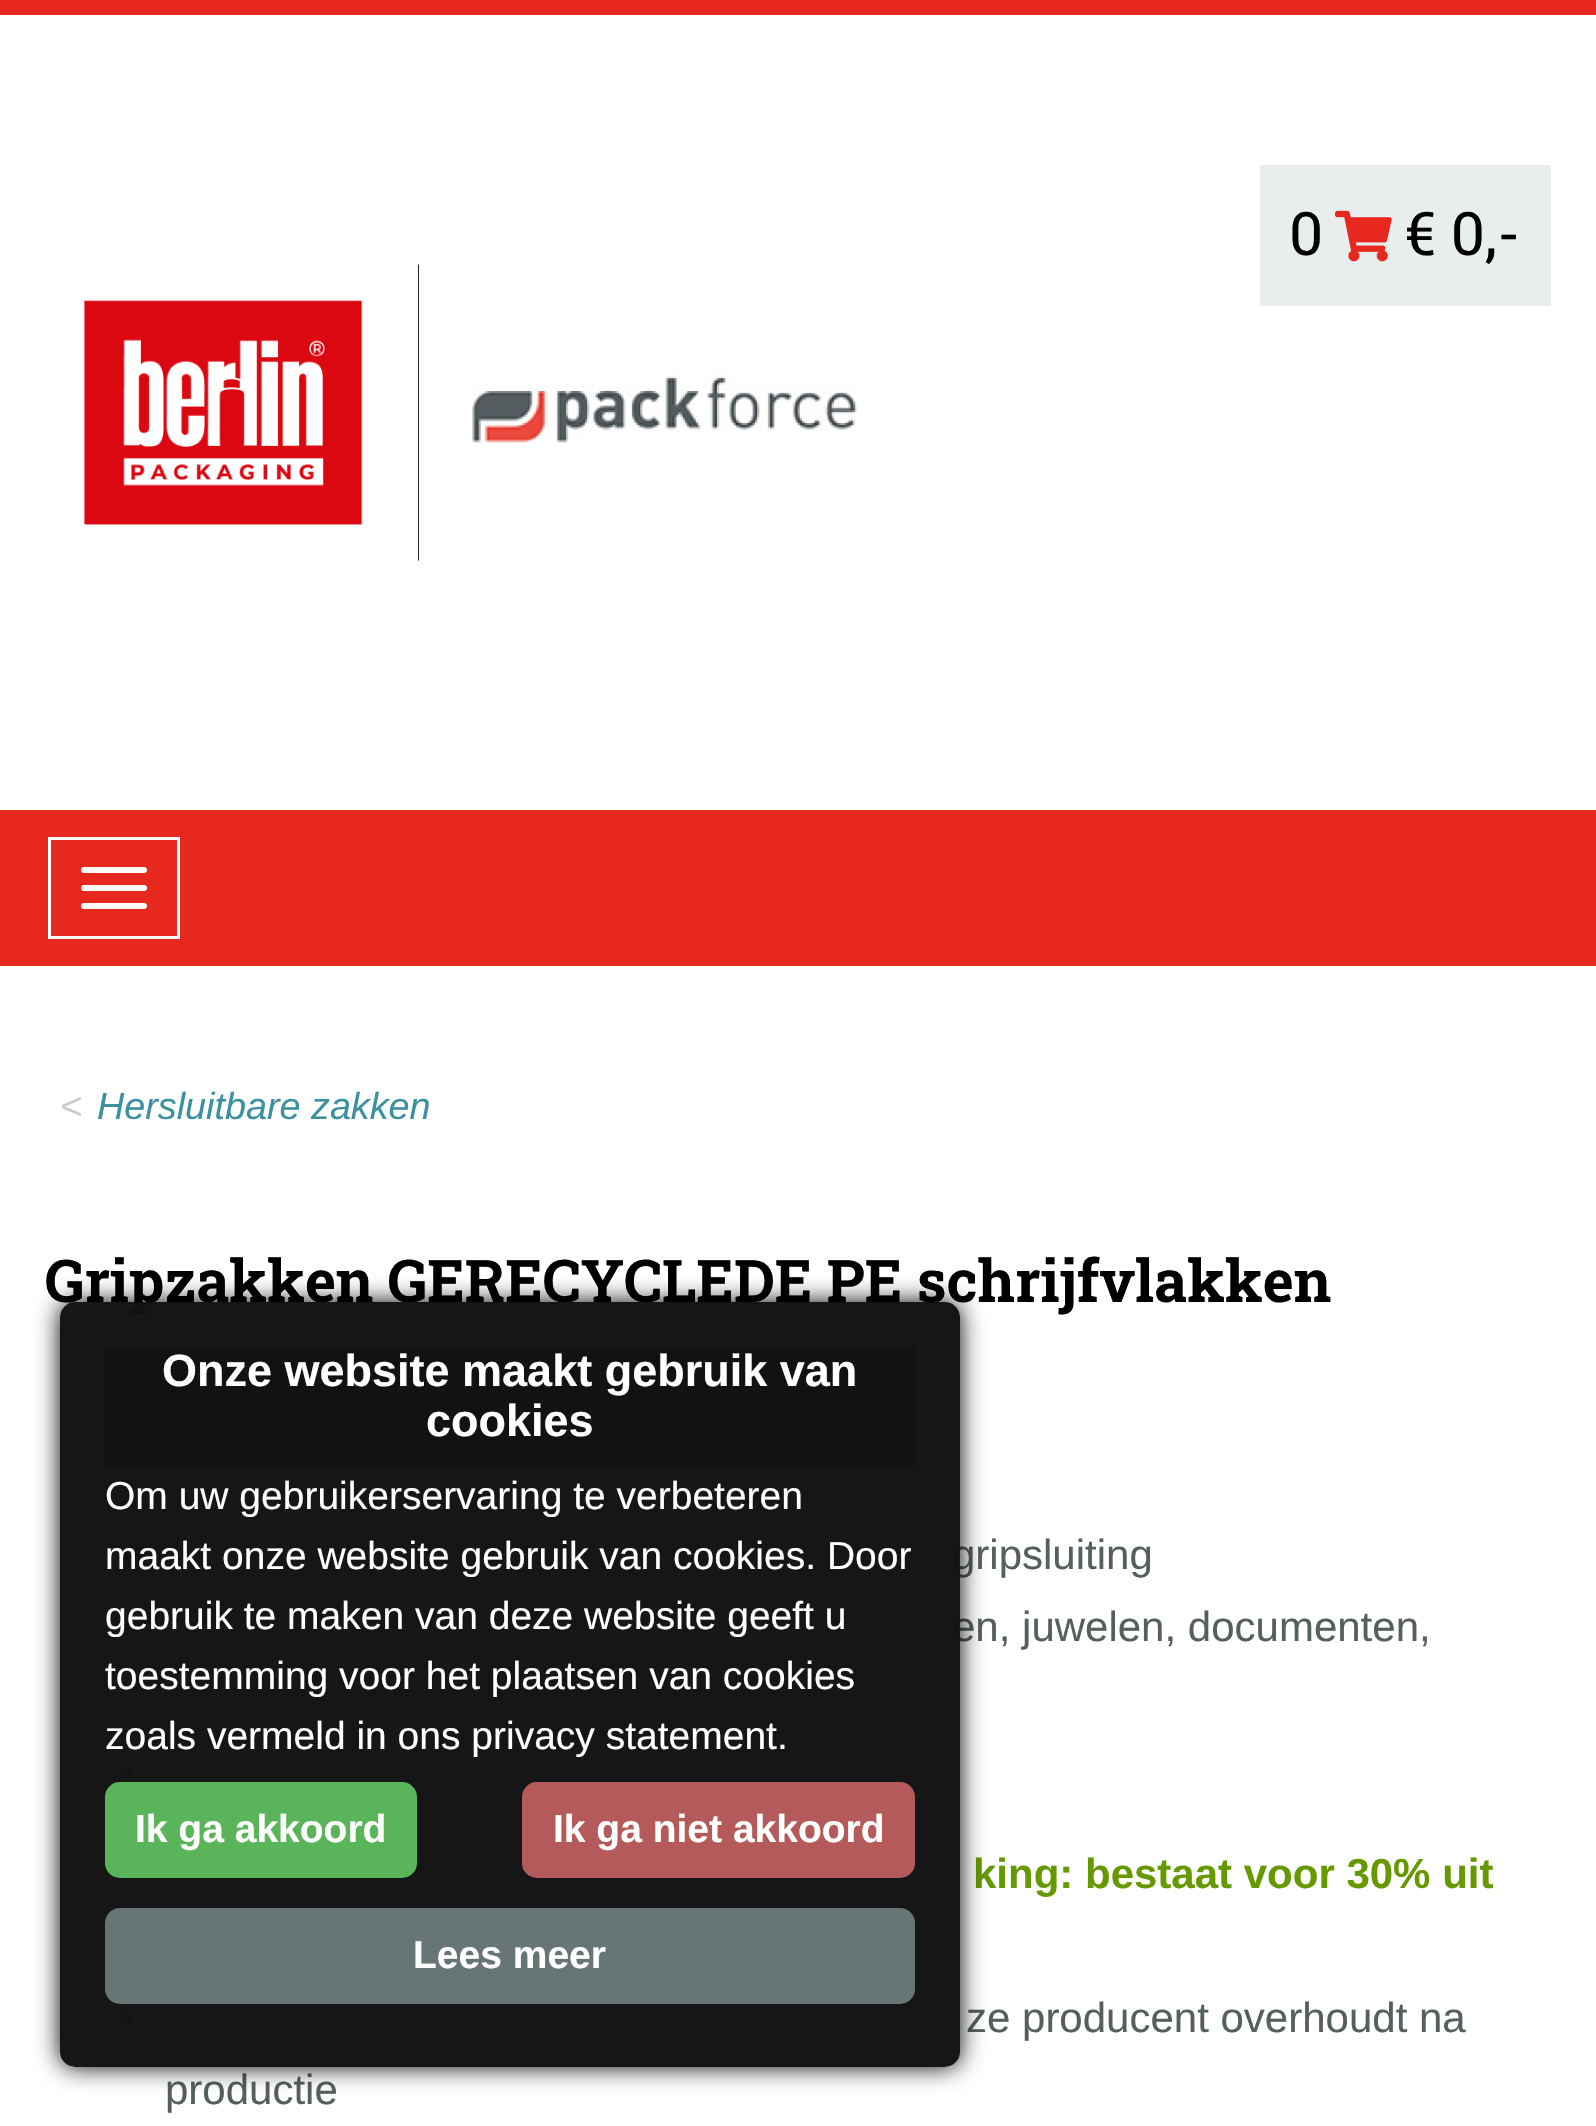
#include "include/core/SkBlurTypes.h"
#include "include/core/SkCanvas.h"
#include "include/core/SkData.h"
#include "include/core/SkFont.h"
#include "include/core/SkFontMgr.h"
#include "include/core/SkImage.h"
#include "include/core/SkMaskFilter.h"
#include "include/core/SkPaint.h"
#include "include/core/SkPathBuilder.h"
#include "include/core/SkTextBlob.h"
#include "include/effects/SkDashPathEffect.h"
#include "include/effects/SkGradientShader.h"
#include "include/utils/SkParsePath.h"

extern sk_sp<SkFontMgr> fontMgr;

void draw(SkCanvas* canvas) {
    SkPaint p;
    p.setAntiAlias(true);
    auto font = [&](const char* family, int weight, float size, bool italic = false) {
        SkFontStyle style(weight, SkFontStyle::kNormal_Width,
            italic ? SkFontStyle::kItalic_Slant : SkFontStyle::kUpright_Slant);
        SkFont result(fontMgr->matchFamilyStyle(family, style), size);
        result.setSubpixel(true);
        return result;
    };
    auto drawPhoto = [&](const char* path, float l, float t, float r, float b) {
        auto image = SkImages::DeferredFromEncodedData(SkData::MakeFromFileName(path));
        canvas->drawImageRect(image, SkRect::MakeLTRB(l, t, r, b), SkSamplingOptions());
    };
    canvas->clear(0xFFFFFFFF);
    p.setColor(0xFFE7281F);
    canvas->drawRect(SkRect::MakeLTRB(0, 0, 1596, 15), p);
    p.setColor(0xFFE8EDEE);
    canvas->drawRect(SkRect::MakeLTRB(1260, 165, 1551, 306), p);
    auto font1 = font("Roboto Slab", 400, 60);
    p.setColor(0xFF000000);
    canvas->drawString("0", 1289, 255, font1, p);
    drawPhoto("media/1.png", 1335, 210, 1392, 262);
    canvas->drawString("€ 0,-", 1405, 255, font1, p);
    drawPhoto("media/2.png", 84, 264, 858, 561);
    p.setColor(0xFFE7281F);
    canvas->drawRect(SkRect::MakeLTRB(0, 810, 1596, 966), p);
    p.setStyle(SkPaint::kStroke_Style);
    p.setStrokeWidth(3);
    p.setColor(0xFFFFFFFF);
    canvas->drawRect(SkRect::MakeLTRB(49.5f, 838.5f, 178.5f, 937.5f), p);
    p.setStyle(SkPaint::kFill_Style);
    canvas->drawRoundRect(SkRect::MakeLTRB(81, 867, 147, 873), 3, 3, p);
    canvas->drawRoundRect(SkRect::MakeLTRB(81, 885, 147, 891), 3, 3, p);
    canvas->drawRoundRect(SkRect::MakeLTRB(81, 903, 147, 909), 3, 3, p);
    auto font2 = font("Liberation Sans", 400, 37.75f, true);
    p.setColor(0xFFCCCCCC);
    canvas->drawString("<", 60, 1119, font2, p);
    p.setColor(0xFF3D90A0);
    canvas->drawString("Hersluitbare zakken", 97, 1119, font2, p);
    auto font3 = font("Roboto Slab", 700, 58.8f);
    p.setColor(0xFF000000);
    canvas->drawString("Gripzakken GERECYCLEDE PE schrijfvlakken", 45, 1302, font3, p);
    p.setColor(0xFF565F60);
    canvas->drawCircle(126, 1413, 6, p);
    canvas->drawCircle(126, 1485, 6, p);
    canvas->drawCircle(126, 1557, 6, p);
    auto font4 = font("Liberation Sans", 400, 42);
    canvas->drawString("gripsluiting", 952, 1569, font4, p);
    canvas->drawCircle(126, 1629, 6, p);
    canvas->drawString("en, juwelen, documenten,", 952, 1641, font4, p);
    canvas->drawCircle(126, 1773, 6, p);
    canvas->drawCircle(126, 1875, 6, p);
    auto font5 = font("Liberation Sans", 700, 42);
    p.setColor(0xFF669900);
    canvas->drawString("king: bestaat voor 30% uit", 973, 1888, font5, p);
    p.setColor(0xFF565F60);
    canvas->drawCircle(126, 2019, 6, p);
    canvas->drawString("ze producent overhoudt na", 966, 2032, font4, p);
    canvas->drawString("productie", 165, 2104, font4, p);
    canvas->save();
    canvas->clipPath(SkPathBuilder(SkPathFillType::kEvenOdd).moveTo(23, 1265).lineTo(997, 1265).lineTo(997, 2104).lineTo(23, 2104).close().moveTo(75, 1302).lineTo(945, 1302).cubicTo(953.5f, 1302, 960, 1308.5f, 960, 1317).lineTo(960, 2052).cubicTo(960, 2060.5f, 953.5f, 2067, 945, 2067).lineTo(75, 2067).cubicTo(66.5f, 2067, 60, 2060.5f, 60, 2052).lineTo(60, 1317).cubicTo(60, 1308.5f, 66.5f, 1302, 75, 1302).close().detach(), true);
    p.setColor(0xFA000000);
    p.setMaskFilter(SkMaskFilter::MakeBlur(kNormal_SkBlurStyle, 12));
    canvas->drawRoundRect(SkRect::MakeLTRB(60, 1302, 960, 2067), 15, 15, p);
    p.setMaskFilter(nullptr);
    canvas->restore();
    p.setColor(0xFA111111);
    canvas->drawRoundRect(SkRect::MakeLTRB(60, 1302, 960, 2067), 15, 15, p);
    canvas->drawRect(SkRect::MakeLTRB(105, 1347, 915, 1467), p);
    auto font6 = font("Liberation Sans", 700, 45);
    p.setColor(0xFFFFFFFF);
    canvas->drawString("Onze website maakt gebruik van", 162, 1386, font6, p);
    canvas->drawString("cookies", 426, 1436, font6, p);
    auto font7 = font("Liberation Sans", 400, 39);
    {
        const struct { const char* s; float x, y; } items[] = {
            {"Om uw gebruikerservaring te verbeteren", 105, 1509},
            {"maakt onze website gebruik van cookies. Door", 105, 1569},
            {"gebruik te maken van deze website geeft u", 105, 1629},
            {"toestemming voor het plaatsen van cookies", 105, 1689},
            {"zoals vermeld in ons privacy statement.", 105, 1749},
        };
        for (auto [s, x, y] : items) {
            canvas->drawString(s, x, y, font7, p);
        }
    }
    p.setColor(0xFA5BB75B);
    canvas->drawRoundRect(SkRect::MakeLTRB(105, 1782, 417, 1878), 15, 15, p);
    auto font8 = font("Liberation Sans", 700, 39);
    p.setColor(0xFFFFFFFF);
    canvas->drawString("Ik ga akkoord", 135, 1842, font8, p);
    p.setColor(0xFAB75B5B);
    canvas->drawRoundRect(SkRect::MakeLTRB(522, 1782, 915, 1878), 15, 15, p);
    p.setColor(0xFFFFFFFF);
    canvas->drawString("Ik ga niet akkoord", 553, 1842, font8, p);
    p.setColor(0xFA697677);
    canvas->drawRoundRect(SkRect::MakeLTRB(105, 1908, 915, 2004), 15, 15, p);
    p.setColor(0xFFFFFFFF);
    canvas->drawString("Lees meer", 413, 1968, font8, p);
}
